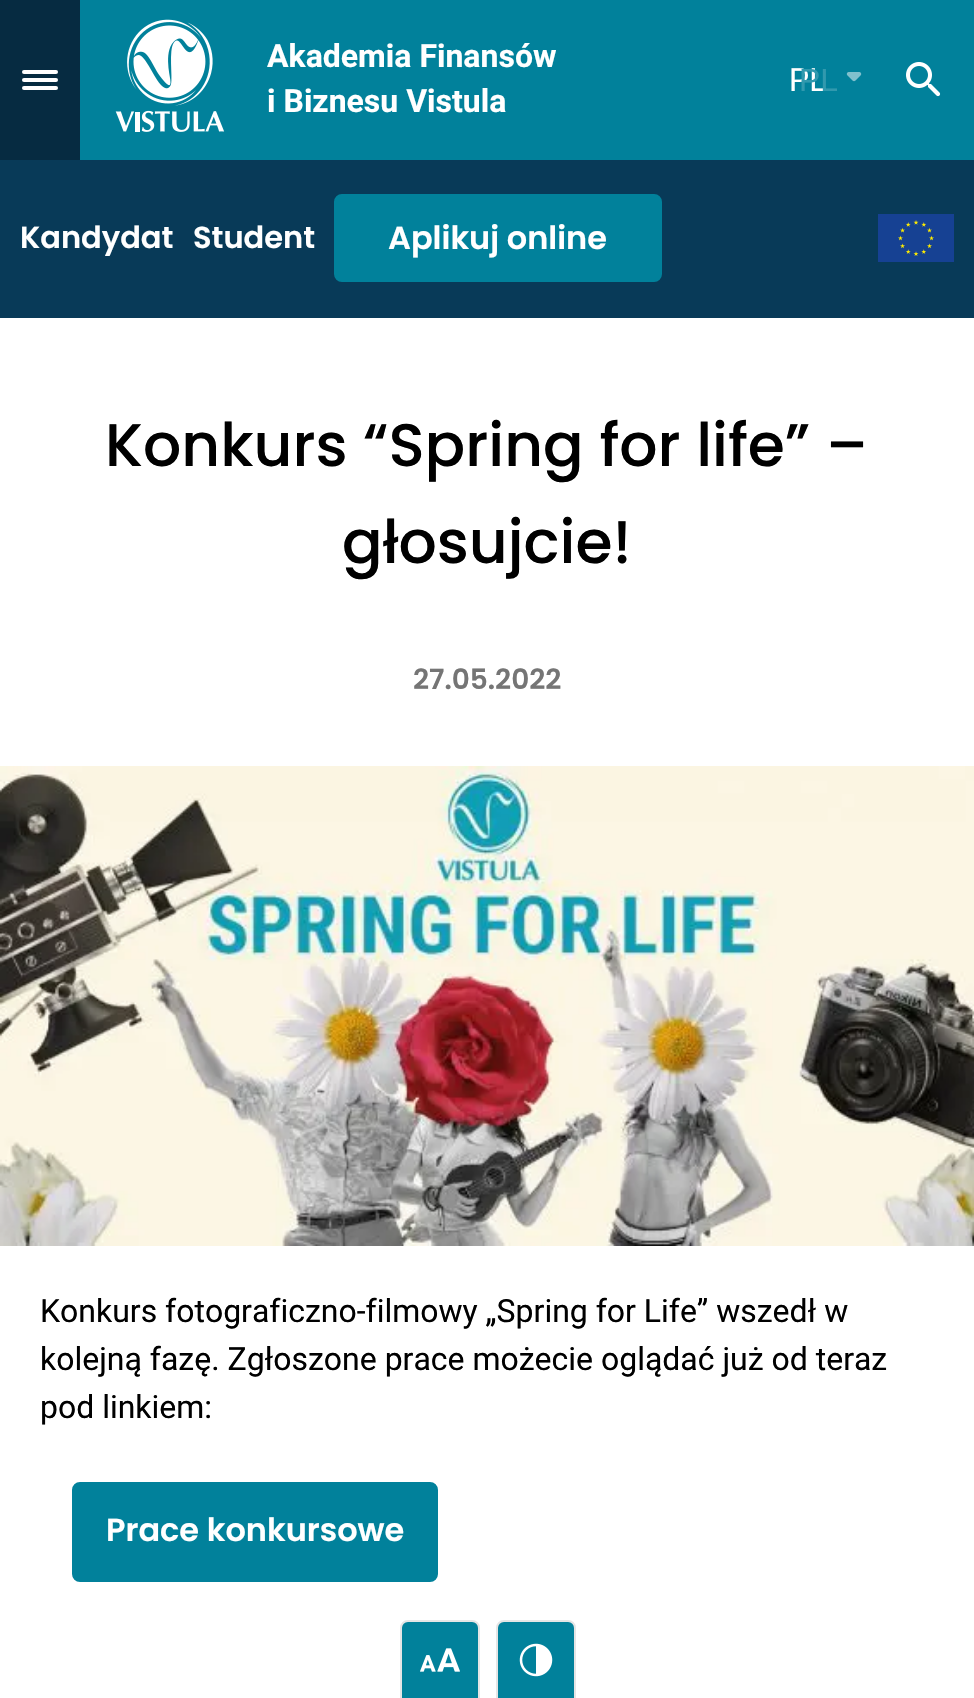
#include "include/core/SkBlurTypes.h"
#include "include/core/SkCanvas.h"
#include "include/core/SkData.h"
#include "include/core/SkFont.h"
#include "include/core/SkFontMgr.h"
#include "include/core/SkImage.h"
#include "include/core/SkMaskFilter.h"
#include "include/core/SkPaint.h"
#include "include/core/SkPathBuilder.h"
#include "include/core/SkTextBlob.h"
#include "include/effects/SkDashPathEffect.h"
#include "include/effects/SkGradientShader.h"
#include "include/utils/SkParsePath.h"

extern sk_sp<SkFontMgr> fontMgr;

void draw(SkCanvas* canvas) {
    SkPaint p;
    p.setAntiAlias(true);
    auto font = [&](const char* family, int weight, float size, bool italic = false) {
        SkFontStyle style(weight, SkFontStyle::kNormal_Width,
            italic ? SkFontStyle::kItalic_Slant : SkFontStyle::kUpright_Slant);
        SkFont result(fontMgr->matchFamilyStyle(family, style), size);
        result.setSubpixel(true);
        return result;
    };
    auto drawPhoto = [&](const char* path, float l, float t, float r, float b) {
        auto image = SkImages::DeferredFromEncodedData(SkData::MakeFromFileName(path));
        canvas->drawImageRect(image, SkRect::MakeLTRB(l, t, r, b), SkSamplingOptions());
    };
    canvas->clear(0xFFFFFFFF);
    {
        const struct { float l, t, r, b; SkColor color; } items[] = {
            {0, 160, 974, 318, 0xFF083A58},
            {80, 0, 974, 160, 0xFF01819B},
            {0, 0, 80, 160, 0xFF062B41},
        };
        for (auto [l, t, r, b, color] : items) {
            p.setColor(color);
            canvas->drawRect(SkRect::MakeLTRB(l, t, r, b), p);
        }
    }
    p.setColor(0xFFFFFFFF);
    canvas->drawRoundRect(SkRect::MakeLTRB(22, 78, 58, 82), 2, 2, p);
    canvas->drawRoundRect(SkRect::MakeLTRB(22, 70, 58, 74), 2, 2, p);
    canvas->drawRoundRect(SkRect::MakeLTRB(22, 86, 58, 90), 2, 2, p);
    drawPhoto("media/1.png", 115, 19, 225, 132);
    auto font1 = font("Roboto", 700, 32);
    canvas->drawString("Akademia Finansów", 267, 67, font1, p);
    canvas->drawString("i Biznesu Vistula", 267, 112, font1, p);
    auto font2 = font("Roboto", 400, 32);
    canvas->drawString("PL", 789, 91, font2, p);
    drawPhoto("media/2.png", 846, 72, 862, 82);
    auto font3 = font("Liberation Sans", 400, 32);
    p.setColor(0xFF3199AE);
    canvas->drawString("PL", 799, 91, font3, p);
    drawPhoto("media/3.png", 906, 62, 941, 97);
    auto font4 = font("Poppins", 600, 30.5f);
    p.setColor(0xFFFFFFFF);
    canvas->drawString("Kandydat", 20, 248, font4, p);
    canvas->drawString("Student", 193, 248, font4, p);
    p.setColor(0xFF01819B);
    canvas->drawRoundRect(SkRect::MakeLTRB(335, 195, 661, 281), 7, 7, p);
    p.setStyle(SkPaint::kStroke_Style);
    p.setStrokeWidth(2);
    canvas->drawRoundRect(SkRect::MakeLTRB(335, 195, 661, 281), 7, 7, p);
    auto font5 = font("Poppins", 600, 32);
    p.setStyle(SkPaint::kFill_Style);
    p.setColor(0xFFFFFFFF);
    canvas->drawString("Aplikuj online", 388, 249, font5, p);
    drawPhoto("media/4.png", 878, 214, 954, 262);
    auto font6 = font("Poppins", 500, 60);
    p.setColor(0xFF000000);
    canvas->drawString("Konkurs “Spring for life” –", 105, 466, font6, p);
    canvas->drawString("głosujcie!", 342, 563, font6, p);
    auto font7 = font("Poppins", 600, 28);
    p.setColor(0xFF757575);
    canvas->drawString("27.05.2022", 413, 689, font7, p);
    drawPhoto("media/5.png", 0, 766, 974, 1246);
    p.setColor(0xFF000000);
    {
        const struct { const char* s; float x, y; } items[] = {
            {"Konkurs fotograficzno-filmowy „Spring for Life” wszedł w", 40, 1322},
            {"kolejną fazę. Zgłoszone prace możecie oglądać już od teraz", 40, 1370},
            {"pod linkiem:", 40, 1418},
        };
        for (auto [s, x, y] : items) {
            canvas->drawString(s, x, y, font2, p);
        }
    }
    p.setColor(0xFF01819B);
    canvas->drawRoundRect(SkRect::MakeLTRB(73, 1483, 437, 1581), 7, 7, p);
    p.setStyle(SkPaint::kStroke_Style);
    canvas->drawRoundRect(SkRect::MakeLTRB(73, 1483, 437, 1581), 7, 7, p);
    p.setStyle(SkPaint::kFill_Style);
    p.setColor(0xFFFFFFFF);
    canvas->drawString("Prace konkursowe", 106, 1541, font5, p);
    p.setColor(0xFF01819B);
    canvas->drawPath(SkPathBuilder().moveTo(408, 1621).lineTo(472, 1621).cubicTo(476, 1621, 479, 1624, 479, 1628).lineTo(479, 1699).lineTo(401, 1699).lineTo(401, 1628).cubicTo(401, 1624, 404, 1621, 408, 1621).close().detach(), p);
    p.setStyle(SkPaint::kStroke_Style);
    p.setColor(0xFFE5E5E5);
    canvas->drawPath(SkPathBuilder().moveTo(408, 1621).lineTo(472, 1621).cubicTo(476, 1621, 479, 1624, 479, 1628).lineTo(479, 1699).lineTo(401, 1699).lineTo(401, 1628).cubicTo(401, 1624, 404, 1621, 408, 1621).close().detach(), p);
    drawPhoto("media/6.png", 420, 1648, 460, 1672);
    p.setStyle(SkPaint::kFill_Style);
    p.setColor(0xFF01819B);
    canvas->drawPath(SkPathBuilder().moveTo(504, 1621).lineTo(568, 1621).cubicTo(572, 1621, 575, 1624, 575, 1628).lineTo(575, 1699).lineTo(497, 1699).lineTo(497, 1628).cubicTo(497, 1624, 500, 1621, 504, 1621).close().detach(), p);
    p.setStyle(SkPaint::kStroke_Style);
    p.setColor(0xFFE5E5E5);
    canvas->drawPath(SkPathBuilder().moveTo(504, 1621).lineTo(568, 1621).cubicTo(572, 1621, 575, 1624, 575, 1628).lineTo(575, 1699).lineTo(497, 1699).lineTo(497, 1628).cubicTo(497, 1624, 500, 1621, 504, 1621).close().detach(), p);
    drawPhoto("media/7.png", 519, 1643, 553, 1677);
}
